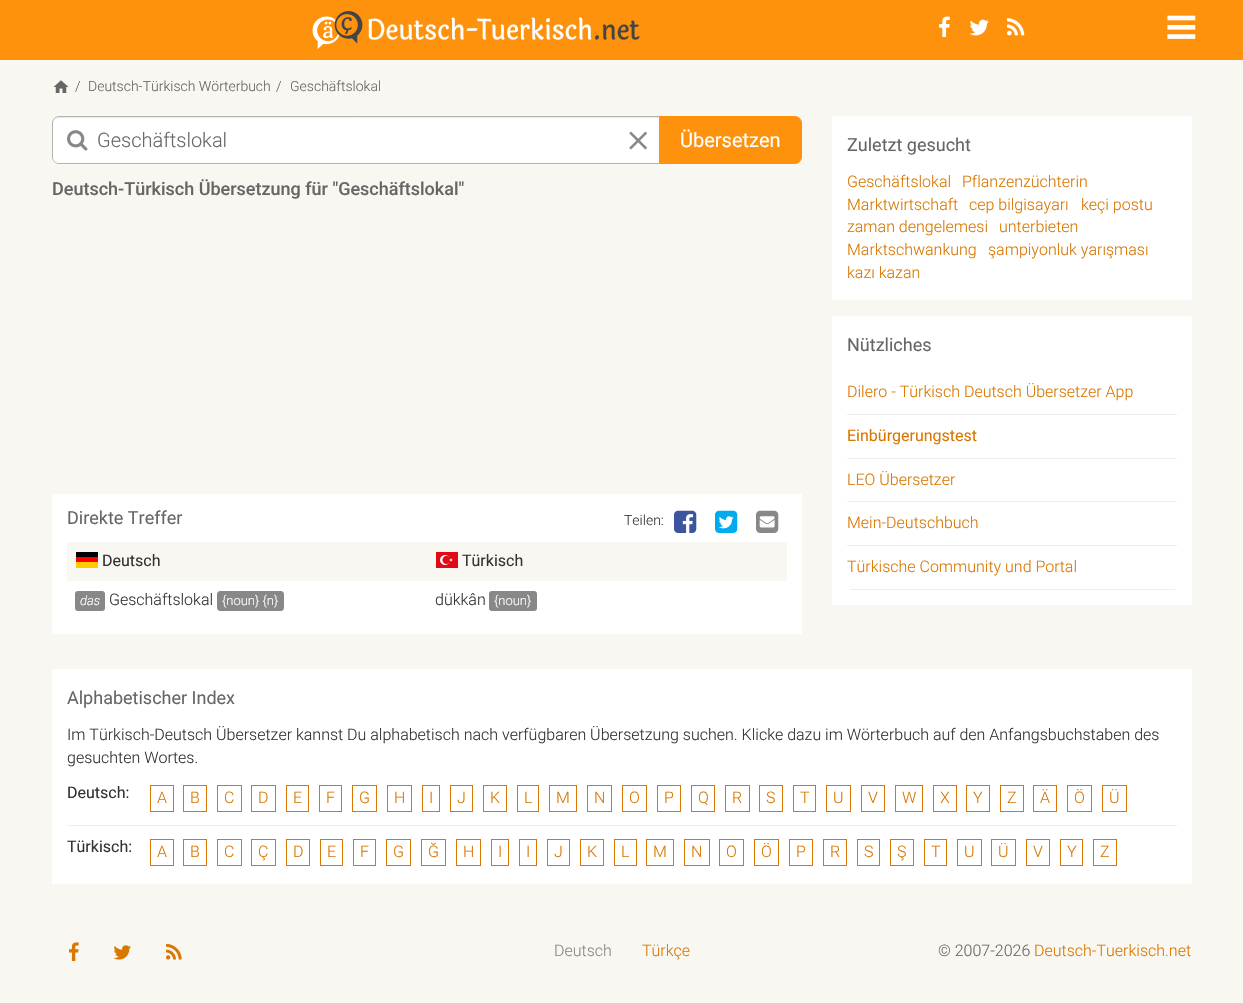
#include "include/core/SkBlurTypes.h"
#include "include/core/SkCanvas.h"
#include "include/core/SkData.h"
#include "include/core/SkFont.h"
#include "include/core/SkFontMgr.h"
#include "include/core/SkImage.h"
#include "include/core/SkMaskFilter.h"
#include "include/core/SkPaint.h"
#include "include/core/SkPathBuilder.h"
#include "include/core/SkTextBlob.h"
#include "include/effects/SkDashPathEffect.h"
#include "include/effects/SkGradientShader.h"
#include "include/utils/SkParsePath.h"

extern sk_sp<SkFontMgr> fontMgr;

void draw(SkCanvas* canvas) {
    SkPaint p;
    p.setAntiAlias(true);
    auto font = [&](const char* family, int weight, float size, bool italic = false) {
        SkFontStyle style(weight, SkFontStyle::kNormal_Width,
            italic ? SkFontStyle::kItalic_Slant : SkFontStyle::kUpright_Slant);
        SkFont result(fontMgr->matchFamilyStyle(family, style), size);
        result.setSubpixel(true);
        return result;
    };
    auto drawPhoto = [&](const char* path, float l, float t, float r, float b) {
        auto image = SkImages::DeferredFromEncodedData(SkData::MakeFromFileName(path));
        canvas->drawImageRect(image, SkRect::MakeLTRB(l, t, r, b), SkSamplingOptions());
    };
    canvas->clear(0xFFF8F7F2);
    p.setColor(0xFFFF920D);
    canvas->drawRect(SkRect::MakeLTRB(0, 0, 1243, 60), p);
    drawPhoto("media/1.png", 312, 11, 640, 49);
    drawPhoto("media/2.png", 939, 16, 950, 37);
    drawPhoto("media/3.png", 969, 19, 989, 36);
    drawPhoto("media/4.png", 1007, 18, 1025, 36);
    drawPhoto("media/5.png", 1167, 15, 1196, 39);
    drawPhoto("media/6.png", 53, 80, 69, 93);
    auto font1 = font("Roboto", 300, 14);
    p.setColor(0xFF666666);
    {
        const struct { const char* s; float x, y; } items[] = {
            {"/", 75, 91},
            {"Deutsch-Türkisch Wörterbuch", 88, 91},
            {"/", 276, 91},
            {"Geschäftslokal", 290, 91},
        };
        for (auto [s, x, y] : items) {
            canvas->drawString(s, x, y, font1, p);
        }
    }
    p.setColor(0xFFFFFFFF);
    canvas->drawPath(SkPathBuilder().moveTo(59, 116).lineTo(660, 116).lineTo(660, 164).lineTo(59, 164).cubicTo(55, 164, 52, 161, 52, 157).lineTo(52, 123).cubicTo(52, 119, 55, 116, 59, 116).close().detach(), p);
    p.setColor(0xFFECECEC);
    canvas->drawPath(SkPathBuilder().moveTo(59, 118).lineTo(659, 118).lineTo(659, 117).lineTo(59, 117).cubicTo(55, 117, 53, 120, 53, 124).cubicTo(53, 121, 56, 118, 59, 118).close().detach(), p);
    p.setStyle(SkPaint::kStroke_Style);
    p.setStrokeWidth(1);
    p.setColor(0xFFB1B1B1);
    canvas->drawPath(SkPathBuilder().moveTo(59, 116.5f).lineTo(659.5f, 116.5f).lineTo(659.5f, 163.5f).lineTo(59, 163.5f).cubicTo(55.5f, 163.5f, 52.5f, 160.5f, 52.5f, 157).lineTo(52.5f, 123).cubicTo(52.5f, 119.5f, 55.5f, 116.5f, 59, 116.5f).close().detach(), p);
    drawPhoto("media/7.png", 67, 130, 88, 151);
    auto font2 = font("Roboto", 300, 20);
    p.setStyle(SkPaint::kFill_Style);
    p.setColor(0xFF666666);
    canvas->drawString("Geschäftslokal", 97, 147, font2, p);
    drawPhoto("media/8.png", 629, 131, 648, 150);
    p.setColor(0xFFFF920D);
    canvas->drawPath(SkPathBuilder().moveTo(659.5f, 116.5f).lineTo(795, 116.5f).cubicTo(798.5f, 116.5f, 801.5f, 119.5f, 801.5f, 123).lineTo(801.5f, 157).cubicTo(801.5f, 160.5f, 798.5f, 163.5f, 795, 163.5f).lineTo(659.5f, 163.5f).close().detach(), p);
    p.setStyle(SkPaint::kStroke_Style);
    canvas->drawPath(SkPathBuilder().moveTo(659.5f, 116.5f).lineTo(795, 116.5f).cubicTo(798.5f, 116.5f, 801.5f, 119.5f, 801.5f, 123).lineTo(801.5f, 157).cubicTo(801.5f, 160.5f, 798.5f, 163.5f, 795, 163.5f).lineTo(659.5f, 163.5f).close().detach(), p);
    auto font3 = font("Roboto", 400, 20);
    p.setStyle(SkPaint::kFill_Style);
    p.setColor(0xFFFFFFFF);
    canvas->drawString("Übersetzen", 680, 147, font3, p);
    auto font4 = font("Roboto", 500, 18);
    p.setColor(0xFF666666);
    canvas->drawString("Deutsch-Türkisch Übersetzung für \"Geschäftslokal\"", 52, 195, font4, p);
    p.setColor(0xFFFFFFFF);
    canvas->drawRect(SkRect::MakeLTRB(52, 494, 802, 634), p);
    auto font5 = font("Roboto", 400, 18);
    p.setColor(0xFF666666);
    canvas->drawString("Direkte Treffer", 67, 524, font5, p);
    p.setColor(0xFF333333);
    canvas->drawString("Teilen:", 624, 525, font1, p);
    drawPhoto("media/9.png", 674, 510, 697, 533);
    drawPhoto("media/10.png", 715, 510, 738, 533);
    drawPhoto("media/11.png", 756, 510, 779, 533);
    p.setColor(0xFFF8F7F2);
    canvas->drawRect(SkRect::MakeLTRB(67, 542, 787, 581), p);
    drawPhoto("media/12.png", 76, 552, 98, 568);
    auto font6 = font("Roboto", 400, 16);
    p.setColor(0xFF333333);
    canvas->drawString("Deutsch", 102, 566, font6, p);
    drawPhoto("media/13.png", 436, 552, 458, 568);
    canvas->drawString("Türkisch", 462, 566, font6, p);
    p.setColor(0xFF888888);
    canvas->drawRoundRect(SkRect::MakeLTRB(75, 591, 105, 611), 3, 3, p);
    auto font7 = font("Roboto", 300, 13, true);
    p.setColor(0xFFFFFFFF);
    canvas->drawString("das", 80, 605, font7, p);
    auto font8 = font("Roboto", 300, 16);
    p.setColor(0xFF333333);
    canvas->drawString("Geschäftslokal", 109, 605, font8, p);
    p.setColor(0xFF888888);
    canvas->drawPath(SkPathBuilder().moveTo(220, 591).lineTo(260, 591).lineTo(260, 611).lineTo(220, 611).cubicTo(218.5f, 611, 217, 609.5f, 217, 608).lineTo(217, 594).cubicTo(217, 592.5f, 218.5f, 591, 220, 591).close().detach(), p);
    canvas->drawRect(SkRect::MakeLTRB(260, 591, 263, 611), p);
    canvas->drawPath(SkPathBuilder().moveTo(263, 591).lineTo(281, 591).cubicTo(282.5f, 591, 284, 592.5f, 284, 594).lineTo(284, 608).cubicTo(284, 609.5f, 282.5f, 611, 281, 611).lineTo(263, 611).close().detach(), p);
    auto font9 = font("Roboto", 300, 13);
    p.setColor(0xFFFFFFFF);
    canvas->drawString("{noun} {n}", 222, 605, font9, p);
    p.setColor(0xFF333333);
    canvas->drawString("dükkân", 435, 605, font8, p);
    p.setColor(0xFF888888);
    canvas->drawRoundRect(SkRect::MakeLTRB(489, 591, 537, 611), 3, 3, p);
    p.setColor(0xFFFFFFFF);
    canvas->drawString("{noun}", 494, 605, font9, p);
    canvas->drawRect(SkRect::MakeLTRB(832, 116, 1192, 300), p);
    p.setColor(0xFF666666);
    canvas->drawString("Zuletzt gesucht", 847, 151, font5, p);
    p.setColor(0xFFD97700);
    {
        const struct { const char* s; float x, y; } items[] = {
            {"Geschäftslokal", 847, 187},
            {"Pflanzenzüchterin", 962, 187},
            {"Marktwirtschaft", 847, 210},
            {"cep bilgisayarı", 969, 210},
            {"keçi postu", 1081, 210},
            {"zaman dengelemesi", 847, 232},
            {"unterbieten", 999, 232},
            {"Marktschwankung", 847, 255},
            {"şampiyonluk yarışması", 988, 255},
            {"kazı kazan", 847, 278},
        };
        for (auto [s, x, y] : items) {
            canvas->drawString(s, x, y, font8, p);
        }
    }
    p.setColor(0xFFFFFFFF);
    canvas->drawRect(SkRect::MakeLTRB(832, 316, 1192, 605), p);
    p.setColor(0xFF666666);
    canvas->drawString("Nützliches", 847, 351, font5, p);
    p.setColor(0xFFEEEEEE);
    canvas->drawRect(SkRect::MakeLTRB(847, 414, 1177, 415), p);
    p.setColor(0xFFD97700);
    canvas->drawString("Dilero - Türkisch Deutsch Übersetzer App", 847, 397, font8, p);
    p.setColor(0xFFEEEEEE);
    canvas->drawRect(SkRect::MakeLTRB(847, 458, 1177, 459), p);
    p.setColor(0xFFD97700);
    canvas->drawString("Einbürgerungstest", 847, 441, font6, p);
    p.setColor(0xFFEEEEEE);
    canvas->drawRect(SkRect::MakeLTRB(847, 501, 1177, 502), p);
    p.setColor(0xFFD97700);
    canvas->drawString("LEO Übersetzer", 847, 485, font8, p);
    p.setColor(0xFFEEEEEE);
    canvas->drawRect(SkRect::MakeLTRB(847, 545, 1177, 546), p);
    p.setColor(0xFFD97700);
    canvas->drawString("Mein-Deutschbuch", 847, 528, font8, p);
    p.setColor(0xFFEEEEEE);
    canvas->drawRect(SkRect::MakeLTRB(850, 589, 1175, 590), p);
    p.setColor(0xFFD97700);
    canvas->drawString("Türkische Community und Portal", 847, 572, font8, p);
    p.setColor(0xFFFFFFFF);
    canvas->drawRect(SkRect::MakeLTRB(52, 669, 1192, 884), p);
    p.setColor(0xFF666666);
    canvas->drawString("Alphabetischer Index", 67, 704, font5, p);
    p.setColor(0xFF333333);
    canvas->drawString("Im Türkisch-Deutsch Übersetzer kannst Du alphabetisch nach verfügbaren Übersetzung suchen. Klicke dazu im Wörterbuch auf den Anfangsbuchstaben des", 67, 740, font8, p);
    canvas->drawString("gesuchten Wortes.", 67, 763, font8, p);
    canvas->drawString("Deutsch:", 67, 798, font6, p);
    p.setStyle(SkPaint::kStroke_Style);
    p.setColor(0xFFD97700);
    canvas->drawRect(SkRect::MakeLTRB(150.5f, 785.5f, 173.5f, 811.5f), p);
    p.setStyle(SkPaint::kFill_Style);
    canvas->drawString("A", 157, 803, font8, p);
    p.setStyle(SkPaint::kStroke_Style);
    canvas->drawRect(SkRect::MakeLTRB(183.5f, 785.5f, 206.5f, 811.5f), p);
    p.setStyle(SkPaint::kFill_Style);
    canvas->drawString("B", 190, 803, font8, p);
    p.setStyle(SkPaint::kStroke_Style);
    canvas->drawRect(SkRect::MakeLTRB(217.5f, 785.5f, 241.5f, 811.5f), p);
    p.setStyle(SkPaint::kFill_Style);
    canvas->drawString("C", 224, 803, font8, p);
    p.setStyle(SkPaint::kStroke_Style);
    canvas->drawRect(SkRect::MakeLTRB(251.5f, 785.5f, 275.5f, 811.5f), p);
    p.setStyle(SkPaint::kFill_Style);
    canvas->drawString("D", 258, 803, font8, p);
    p.setStyle(SkPaint::kStroke_Style);
    canvas->drawRect(SkRect::MakeLTRB(286.5f, 785.5f, 308.5f, 811.5f), p);
    p.setStyle(SkPaint::kFill_Style);
    canvas->drawString("E", 293, 803, font8, p);
    p.setStyle(SkPaint::kStroke_Style);
    canvas->drawRect(SkRect::MakeLTRB(319.5f, 785.5f, 341.5f, 811.5f), p);
    p.setStyle(SkPaint::kFill_Style);
    canvas->drawString("F", 326, 803, font8, p);
    p.setStyle(SkPaint::kStroke_Style);
    canvas->drawRect(SkRect::MakeLTRB(352.5f, 785.5f, 376.5f, 811.5f), p);
    p.setStyle(SkPaint::kFill_Style);
    canvas->drawString("G", 359, 803, font8, p);
    p.setStyle(SkPaint::kStroke_Style);
    canvas->drawRect(SkRect::MakeLTRB(387.5f, 785.5f, 411.5f, 811.5f), p);
    p.setStyle(SkPaint::kFill_Style);
    canvas->drawString("H", 394, 803, font8, p);
    p.setStyle(SkPaint::kStroke_Style);
    canvas->drawRect(SkRect::MakeLTRB(422.5f, 785.5f, 439.5f, 811.5f), p);
    p.setStyle(SkPaint::kFill_Style);
    canvas->drawString("I", 429, 803, font8, p);
    p.setStyle(SkPaint::kStroke_Style);
    canvas->drawRect(SkRect::MakeLTRB(450.5f, 785.5f, 472.5f, 811.5f), p);
    p.setStyle(SkPaint::kFill_Style);
    canvas->drawString("J", 457, 803, font8, p);
    p.setStyle(SkPaint::kStroke_Style);
    canvas->drawRect(SkRect::MakeLTRB(483.5f, 785.5f, 506.5f, 811.5f), p);
    p.setStyle(SkPaint::kFill_Style);
    canvas->drawString("K", 490, 803, font8, p);
    p.setStyle(SkPaint::kStroke_Style);
    canvas->drawRect(SkRect::MakeLTRB(517.5f, 785.5f, 538.5f, 811.5f), p);
    p.setStyle(SkPaint::kFill_Style);
    canvas->drawString("L", 524, 803, font8, p);
    p.setStyle(SkPaint::kStroke_Style);
    canvas->drawRect(SkRect::MakeLTRB(549.5f, 785.5f, 576.5f, 811.5f), p);
    p.setStyle(SkPaint::kFill_Style);
    canvas->drawString("M", 556, 803, font8, p);
    p.setStyle(SkPaint::kStroke_Style);
    canvas->drawRect(SkRect::MakeLTRB(587.5f, 785.5f, 611.5f, 811.5f), p);
    p.setStyle(SkPaint::kFill_Style);
    canvas->drawString("N", 594, 803, font8, p);
    p.setStyle(SkPaint::kStroke_Style);
    canvas->drawRect(SkRect::MakeLTRB(622.5f, 785.5f, 646.5f, 811.5f), p);
    p.setStyle(SkPaint::kFill_Style);
    canvas->drawString("O", 629, 803, font8, p);
    p.setStyle(SkPaint::kStroke_Style);
    canvas->drawRect(SkRect::MakeLTRB(657.5f, 785.5f, 680.5f, 811.5f), p);
    p.setStyle(SkPaint::kFill_Style);
    canvas->drawString("P", 664, 803, font8, p);
    p.setStyle(SkPaint::kStroke_Style);
    canvas->drawRect(SkRect::MakeLTRB(691.5f, 785.5f, 714.5f, 811.5f), p);
    p.setStyle(SkPaint::kFill_Style);
    canvas->drawString("Q", 698, 803, font8, p);
    p.setStyle(SkPaint::kStroke_Style);
    canvas->drawRect(SkRect::MakeLTRB(725.5f, 785.5f, 749.5f, 811.5f), p);
    p.setStyle(SkPaint::kFill_Style);
    canvas->drawString("R", 732, 803, font8, p);
    p.setStyle(SkPaint::kStroke_Style);
    canvas->drawRect(SkRect::MakeLTRB(759.5f, 785.5f, 782.5f, 811.5f), p);
    p.setStyle(SkPaint::kFill_Style);
    canvas->drawString("S", 766, 803, font8, p);
    p.setStyle(SkPaint::kStroke_Style);
    canvas->drawRect(SkRect::MakeLTRB(793.5f, 785.5f, 815.5f, 811.5f), p);
    p.setStyle(SkPaint::kFill_Style);
    canvas->drawString("T", 800, 803, font8, p);
    p.setStyle(SkPaint::kStroke_Style);
    canvas->drawRect(SkRect::MakeLTRB(826.5f, 785.5f, 850.5f, 811.5f), p);
    p.setStyle(SkPaint::kFill_Style);
    canvas->drawString("U", 833, 803, font8, p);
    p.setStyle(SkPaint::kStroke_Style);
    canvas->drawRect(SkRect::MakeLTRB(861.5f, 785.5f, 884.5f, 811.5f), p);
    p.setStyle(SkPaint::kFill_Style);
    canvas->drawString("V", 868, 803, font8, p);
    p.setStyle(SkPaint::kStroke_Style);
    canvas->drawRect(SkRect::MakeLTRB(895.5f, 785.5f, 922.5f, 811.5f), p);
    p.setStyle(SkPaint::kFill_Style);
    canvas->drawString("W", 902, 803, font8, p);
    p.setStyle(SkPaint::kStroke_Style);
    canvas->drawRect(SkRect::MakeLTRB(933.5f, 785.5f, 956.5f, 811.5f), p);
    p.setStyle(SkPaint::kFill_Style);
    canvas->drawString("X", 940, 803, font8, p);
    p.setStyle(SkPaint::kStroke_Style);
    canvas->drawRect(SkRect::MakeLTRB(966.5f, 785.5f, 989.5f, 811.5f), p);
    p.setStyle(SkPaint::kFill_Style);
    canvas->drawString("Y", 973, 803, font8, p);
    p.setStyle(SkPaint::kStroke_Style);
    canvas->drawRect(SkRect::MakeLTRB(1000.5f, 785.5f, 1023.5f, 811.5f), p);
    p.setStyle(SkPaint::kFill_Style);
    canvas->drawString("Z", 1007, 803, font8, p);
    p.setStyle(SkPaint::kStroke_Style);
    canvas->drawRect(SkRect::MakeLTRB(1033.5f, 785.5f, 1056.5f, 811.5f), p);
    p.setStyle(SkPaint::kFill_Style);
    canvas->drawString("Ä", 1040, 803, font8, p);
    p.setStyle(SkPaint::kStroke_Style);
    canvas->drawRect(SkRect::MakeLTRB(1067.5f, 785.5f, 1091.5f, 811.5f), p);
    p.setStyle(SkPaint::kFill_Style);
    canvas->drawString("Ö", 1074, 803, font8, p);
    p.setStyle(SkPaint::kStroke_Style);
    canvas->drawRect(SkRect::MakeLTRB(1102.5f, 785.5f, 1126.5f, 811.5f), p);
    p.setStyle(SkPaint::kFill_Style);
    canvas->drawString("Ü", 1109, 803, font8, p);
    p.setColor(0xFFEEEEEE);
    canvas->drawRect(SkRect::MakeLTRB(67, 825, 1177, 826), p);
    p.setColor(0xFF333333);
    canvas->drawString("Türkisch:", 67, 852, font6, p);
    p.setStyle(SkPaint::kStroke_Style);
    p.setColor(0xFFD97700);
    canvas->drawRect(SkRect::MakeLTRB(150.5f, 839.5f, 173.5f, 865.5f), p);
    p.setStyle(SkPaint::kFill_Style);
    canvas->drawString("A", 157, 857, font8, p);
    p.setStyle(SkPaint::kStroke_Style);
    canvas->drawRect(SkRect::MakeLTRB(183.5f, 839.5f, 206.5f, 865.5f), p);
    p.setStyle(SkPaint::kFill_Style);
    canvas->drawString("B", 190, 857, font8, p);
    p.setStyle(SkPaint::kStroke_Style);
    canvas->drawRect(SkRect::MakeLTRB(217.5f, 839.5f, 241.5f, 865.5f), p);
    p.setStyle(SkPaint::kFill_Style);
    canvas->drawString("C", 224, 857, font8, p);
    p.setStyle(SkPaint::kStroke_Style);
    canvas->drawRect(SkRect::MakeLTRB(251.5f, 839.5f, 275.5f, 865.5f), p);
    p.setStyle(SkPaint::kFill_Style);
    canvas->drawString("Ç", 258, 857, font8, p);
    p.setStyle(SkPaint::kStroke_Style);
    canvas->drawRect(SkRect::MakeLTRB(286.5f, 839.5f, 309.5f, 865.5f), p);
    p.setStyle(SkPaint::kFill_Style);
    canvas->drawString("D", 293, 857, font8, p);
    p.setStyle(SkPaint::kStroke_Style);
    canvas->drawRect(SkRect::MakeLTRB(320.5f, 839.5f, 342.5f, 865.5f), p);
    p.setStyle(SkPaint::kFill_Style);
    canvas->drawString("E", 327, 857, font8, p);
    p.setStyle(SkPaint::kStroke_Style);
    canvas->drawRect(SkRect::MakeLTRB(353.5f, 839.5f, 375.5f, 865.5f), p);
    p.setStyle(SkPaint::kFill_Style);
    canvas->drawString("F", 360, 857, font8, p);
    p.setStyle(SkPaint::kStroke_Style);
    canvas->drawRect(SkRect::MakeLTRB(386.5f, 839.5f, 410.5f, 865.5f), p);
    p.setStyle(SkPaint::kFill_Style);
    canvas->drawString("G", 393, 857, font8, p);
    p.setStyle(SkPaint::kStroke_Style);
    canvas->drawRect(SkRect::MakeLTRB(421.5f, 839.5f, 445.5f, 865.5f), p);
    p.setStyle(SkPaint::kFill_Style);
    canvas->drawString("Ğ", 428, 857, font8, p);
    p.setStyle(SkPaint::kStroke_Style);
    canvas->drawRect(SkRect::MakeLTRB(456.5f, 839.5f, 480.5f, 865.5f), p);
    p.setStyle(SkPaint::kFill_Style);
    canvas->drawString("H", 463, 857, font8, p);
    p.setStyle(SkPaint::kStroke_Style);
    canvas->drawRect(SkRect::MakeLTRB(491.5f, 839.5f, 508.5f, 865.5f), p);
    p.setStyle(SkPaint::kFill_Style);
    canvas->drawString("I", 498, 857, font8, p);
    p.setStyle(SkPaint::kStroke_Style);
    canvas->drawRect(SkRect::MakeLTRB(519.5f, 839.5f, 536.5f, 865.5f), p);
    p.setStyle(SkPaint::kFill_Style);
    canvas->drawString("I", 526, 857, font8, p);
    p.setStyle(SkPaint::kStroke_Style);
    canvas->drawRect(SkRect::MakeLTRB(547.5f, 839.5f, 569.5f, 865.5f), p);
    p.setStyle(SkPaint::kFill_Style);
    canvas->drawString("J", 554, 857, font8, p);
    p.setStyle(SkPaint::kStroke_Style);
    canvas->drawRect(SkRect::MakeLTRB(580.5f, 839.5f, 603.5f, 865.5f), p);
    p.setStyle(SkPaint::kFill_Style);
    canvas->drawString("K", 587, 857, font8, p);
    p.setStyle(SkPaint::kStroke_Style);
    canvas->drawRect(SkRect::MakeLTRB(614.5f, 839.5f, 636.5f, 865.5f), p);
    p.setStyle(SkPaint::kFill_Style);
    canvas->drawString("L", 621, 857, font8, p);
    p.setStyle(SkPaint::kStroke_Style);
    canvas->drawRect(SkRect::MakeLTRB(646.5f, 839.5f, 673.5f, 865.5f), p);
    p.setStyle(SkPaint::kFill_Style);
    canvas->drawString("M", 653, 857, font8, p);
    p.setStyle(SkPaint::kStroke_Style);
    canvas->drawRect(SkRect::MakeLTRB(684.5f, 839.5f, 709.5f, 865.5f), p);
    p.setStyle(SkPaint::kFill_Style);
    canvas->drawString("N", 691, 857, font8, p);
    p.setStyle(SkPaint::kStroke_Style);
    canvas->drawRect(SkRect::MakeLTRB(719.5f, 839.5f, 743.5f, 865.5f), p);
    p.setStyle(SkPaint::kFill_Style);
    canvas->drawString("O", 726, 857, font8, p);
    p.setStyle(SkPaint::kStroke_Style);
    canvas->drawRect(SkRect::MakeLTRB(754.5f, 839.5f, 778.5f, 865.5f), p);
    p.setStyle(SkPaint::kFill_Style);
    canvas->drawString("Ö", 761, 857, font8, p);
    p.setStyle(SkPaint::kStroke_Style);
    canvas->drawRect(SkRect::MakeLTRB(789.5f, 839.5f, 812.5f, 865.5f), p);
    p.setStyle(SkPaint::kFill_Style);
    canvas->drawString("P", 796, 857, font8, p);
    p.setStyle(SkPaint::kStroke_Style);
    canvas->drawRect(SkRect::MakeLTRB(823.5f, 839.5f, 846.5f, 865.5f), p);
    p.setStyle(SkPaint::kFill_Style);
    canvas->drawString("R", 830, 857, font8, p);
    p.setStyle(SkPaint::kStroke_Style);
    canvas->drawRect(SkRect::MakeLTRB(857.5f, 839.5f, 879.5f, 865.5f), p);
    p.setStyle(SkPaint::kFill_Style);
    canvas->drawString("S", 864, 857, font8, p);
    p.setStyle(SkPaint::kStroke_Style);
    canvas->drawRect(SkRect::MakeLTRB(890.5f, 839.5f, 913.5f, 865.5f), p);
    p.setStyle(SkPaint::kFill_Style);
    canvas->drawString("Ş", 897, 857, font8, p);
    p.setStyle(SkPaint::kStroke_Style);
    canvas->drawRect(SkRect::MakeLTRB(924.5f, 839.5f, 946.5f, 865.5f), p);
    p.setStyle(SkPaint::kFill_Style);
    canvas->drawString("T", 931, 857, font8, p);
    p.setStyle(SkPaint::kStroke_Style);
    canvas->drawRect(SkRect::MakeLTRB(957.5f, 839.5f, 981.5f, 865.5f), p);
    p.setStyle(SkPaint::kFill_Style);
    canvas->drawString("U", 964, 857, font8, p);
    p.setStyle(SkPaint::kStroke_Style);
    canvas->drawRect(SkRect::MakeLTRB(991.5f, 839.5f, 1015.5f, 865.5f), p);
    p.setStyle(SkPaint::kFill_Style);
    canvas->drawString("Ü", 998, 857, font8, p);
    p.setStyle(SkPaint::kStroke_Style);
    canvas->drawRect(SkRect::MakeLTRB(1026.5f, 839.5f, 1049.5f, 865.5f), p);
    p.setStyle(SkPaint::kFill_Style);
    canvas->drawString("V", 1033, 857, font8, p);
    p.setStyle(SkPaint::kStroke_Style);
    canvas->drawRect(SkRect::MakeLTRB(1060.5f, 839.5f, 1082.5f, 865.5f), p);
    p.setStyle(SkPaint::kFill_Style);
    canvas->drawString("Y", 1067, 857, font8, p);
    p.setStyle(SkPaint::kStroke_Style);
    canvas->drawRect(SkRect::MakeLTRB(1093.5f, 839.5f, 1116.5f, 865.5f), p);
    p.setStyle(SkPaint::kFill_Style);
    canvas->drawString("Z", 1100, 857, font8, p);
    drawPhoto("media/14.png", 69, 942, 79, 961);
    drawPhoto("media/15.png", 113, 945, 131, 960);
    drawPhoto("media/16.png", 166, 943, 182, 960);
    p.setColor(0xFF888888);
    canvas->drawString("Deutsch", 554, 956, font8, p);
    p.setColor(0xFFD97700);
    canvas->drawString("Türkçe", 642, 956, font8, p);
    p.setColor(0xFF666666);
    canvas->drawString("© 2007-2026", 938, 956, font8, p);
    p.setColor(0xFFD97700);
    canvas->drawString("Deutsch-Tuerkisch.net", 1034, 956, font8, p);
}
